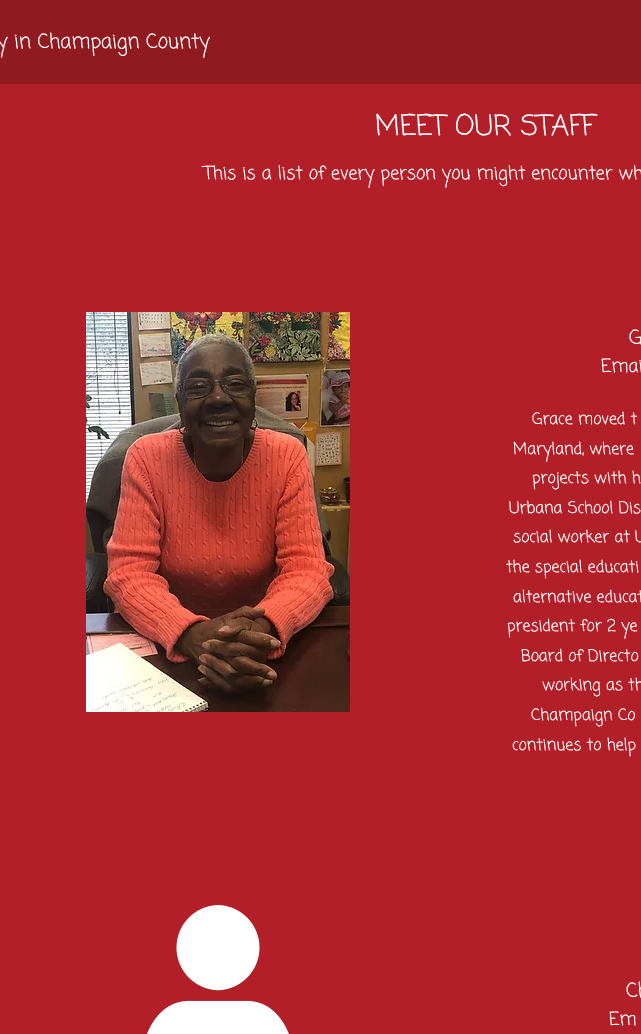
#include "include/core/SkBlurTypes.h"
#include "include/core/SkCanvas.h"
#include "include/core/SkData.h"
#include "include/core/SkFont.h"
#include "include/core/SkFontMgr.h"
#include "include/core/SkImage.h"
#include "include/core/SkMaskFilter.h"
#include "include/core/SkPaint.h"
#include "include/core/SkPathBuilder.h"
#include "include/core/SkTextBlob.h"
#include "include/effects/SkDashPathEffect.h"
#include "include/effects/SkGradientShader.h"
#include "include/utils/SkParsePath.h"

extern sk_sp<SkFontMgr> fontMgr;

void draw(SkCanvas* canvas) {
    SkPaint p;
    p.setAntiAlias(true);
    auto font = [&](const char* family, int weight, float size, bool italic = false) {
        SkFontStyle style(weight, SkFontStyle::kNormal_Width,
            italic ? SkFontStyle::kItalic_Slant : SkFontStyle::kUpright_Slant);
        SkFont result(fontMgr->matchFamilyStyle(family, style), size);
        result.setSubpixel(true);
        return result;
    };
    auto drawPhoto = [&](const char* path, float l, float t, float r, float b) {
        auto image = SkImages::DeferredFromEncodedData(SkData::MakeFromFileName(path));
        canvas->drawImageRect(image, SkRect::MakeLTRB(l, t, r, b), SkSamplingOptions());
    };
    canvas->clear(0xFFB31F28);
    p.setColor(0xFF911920);
    canvas->drawRect(SkRect::MakeLTRB(0, 0, 641, 84), p);
    auto font1 = font("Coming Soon", 400, 20);
    p.setColor(0xFFFFFFFF);
    canvas->drawString("y in Champaign County", -3, 48, font1, p);
    auto font2 = font("Coming Soon", 400, 28);
    canvas->drawString("MEET OUR STAFF", 375, 135, font2, p);
    auto font3 = font("Coming Soon", 400, 18);
    canvas->drawString("This is a list of every person you might encounter wh", 204, 179, font3, p);
    drawPhoto("media/1.png", 86, 312, 350, 712);
    canvas->drawString("G", 629, 344, font1, p);
    canvas->drawString("Emai", 601, 372, font3, p);
    auto font4 = font("Coming Soon", 400, 16);
    {
        const struct { const char* s; float x, y; } items[] = {
            {"Grace moved t", 532, 424},
            {"Maryland, where", 513, 454},
            {"projects with h", 532, 483},
            {"Urbana School Dis", 509, 513},
            {"social worker at U", 513, 542},
            {"the special educati", 506, 572},
            {"alternative educat", 513, 602},
            {"president for 2 ye", 507, 631},
            {"Board of Directo", 521, 661},
            {"working as th", 542, 690},
            {"Champaign Co", 531, 720},
            {"continues to help", 512, 750},
        };
        for (auto [s, x, y] : items) {
            canvas->drawString(s, x, y, font4, p);
        }
    }
    drawPhoto("media/2.png", 147, 905, 289, 1034);
    canvas->drawString("Ch", 626, 997, font1, p);
    canvas->drawString("Em", 609, 1025, font3, p);
}
